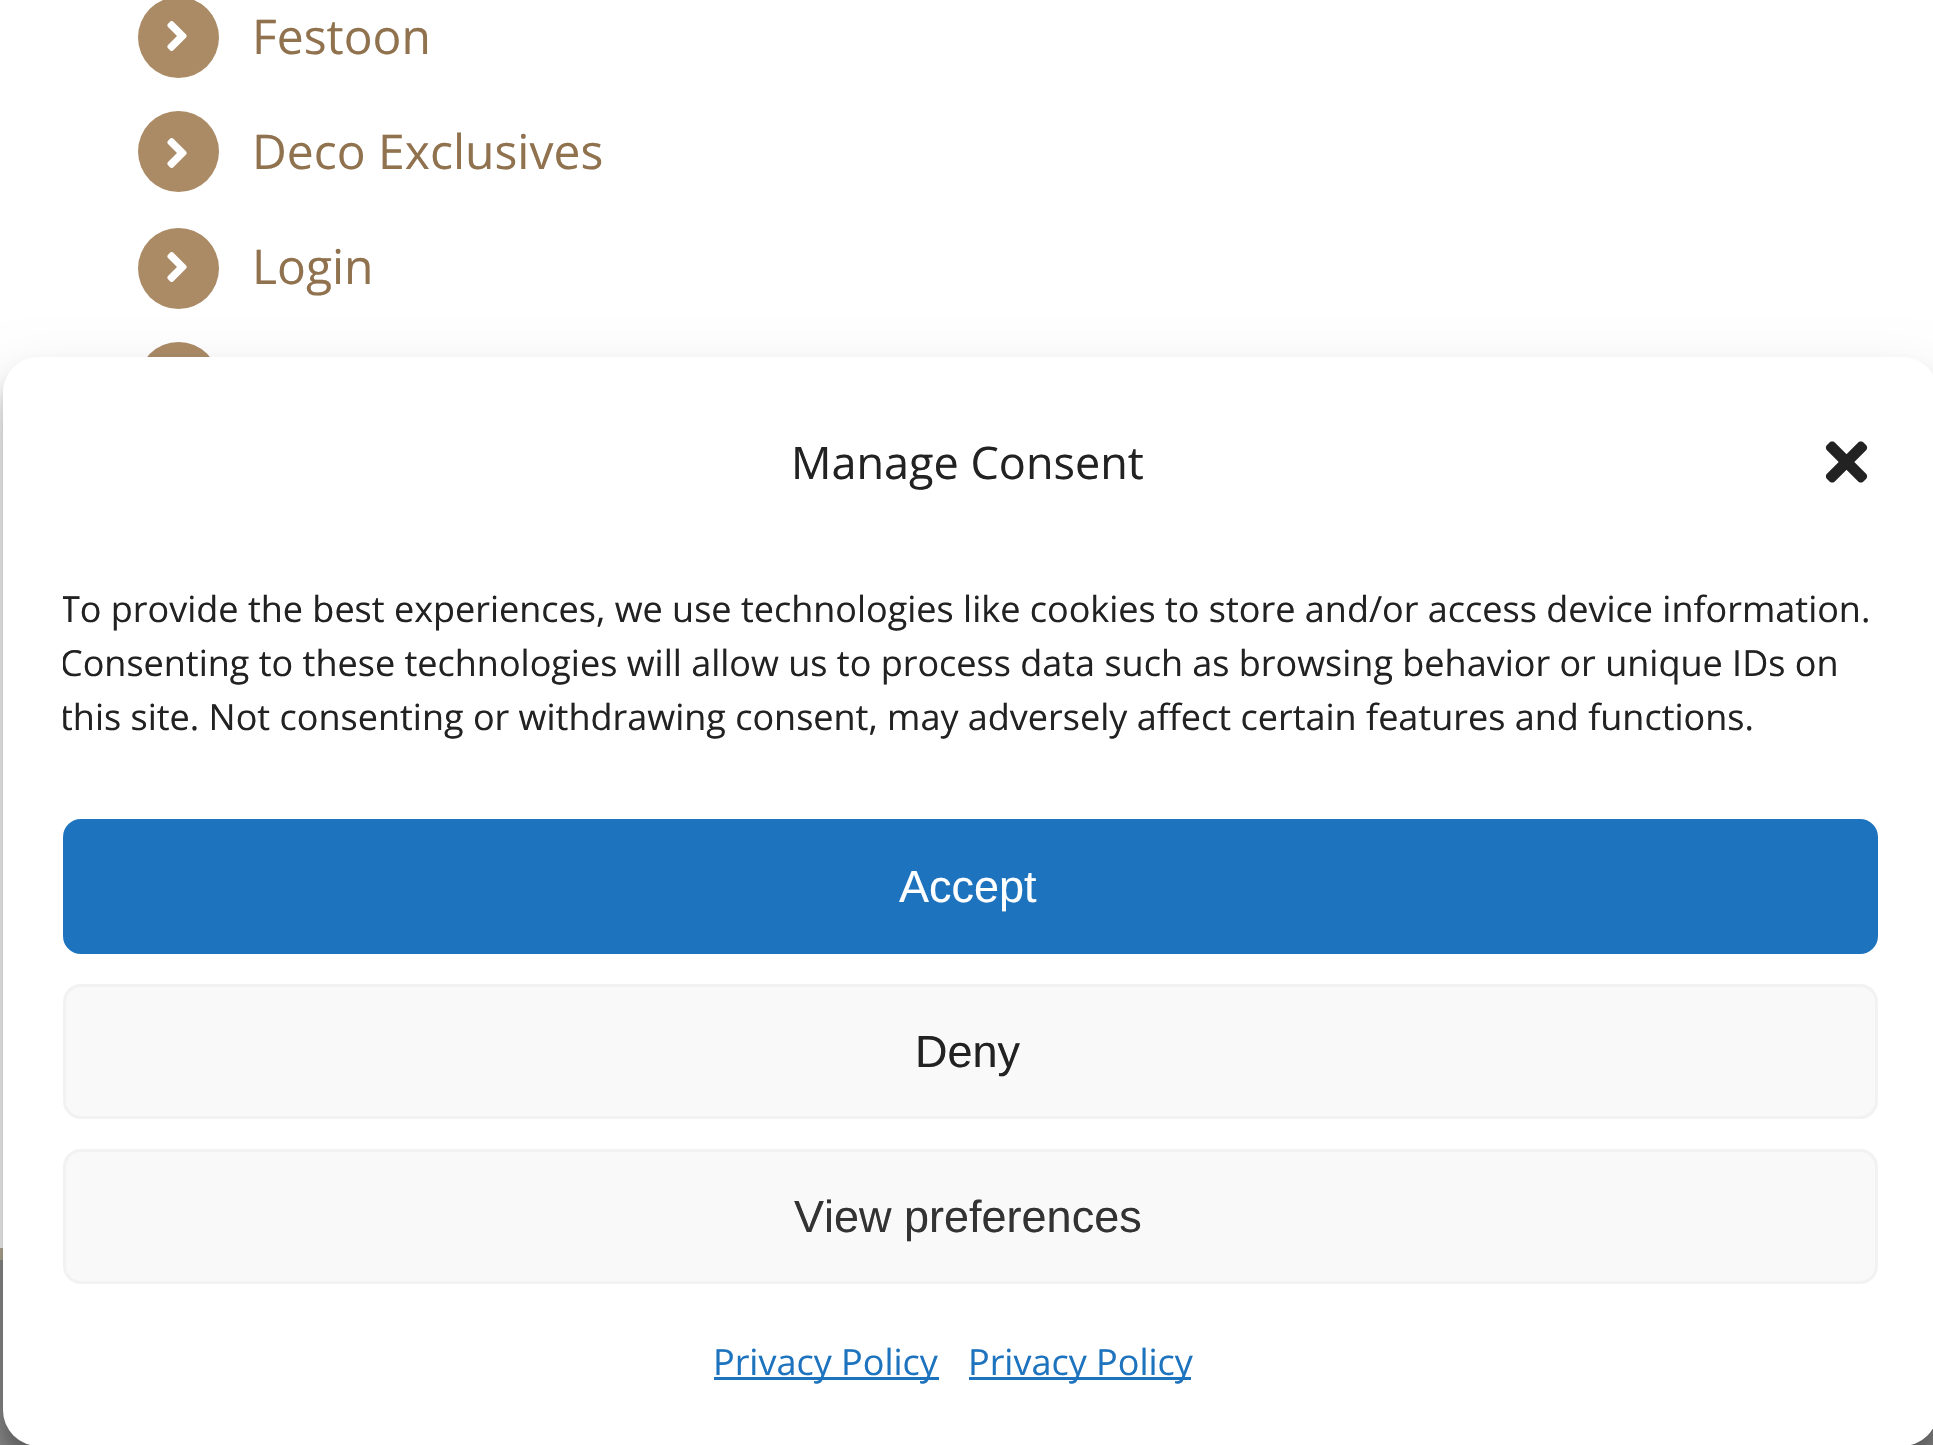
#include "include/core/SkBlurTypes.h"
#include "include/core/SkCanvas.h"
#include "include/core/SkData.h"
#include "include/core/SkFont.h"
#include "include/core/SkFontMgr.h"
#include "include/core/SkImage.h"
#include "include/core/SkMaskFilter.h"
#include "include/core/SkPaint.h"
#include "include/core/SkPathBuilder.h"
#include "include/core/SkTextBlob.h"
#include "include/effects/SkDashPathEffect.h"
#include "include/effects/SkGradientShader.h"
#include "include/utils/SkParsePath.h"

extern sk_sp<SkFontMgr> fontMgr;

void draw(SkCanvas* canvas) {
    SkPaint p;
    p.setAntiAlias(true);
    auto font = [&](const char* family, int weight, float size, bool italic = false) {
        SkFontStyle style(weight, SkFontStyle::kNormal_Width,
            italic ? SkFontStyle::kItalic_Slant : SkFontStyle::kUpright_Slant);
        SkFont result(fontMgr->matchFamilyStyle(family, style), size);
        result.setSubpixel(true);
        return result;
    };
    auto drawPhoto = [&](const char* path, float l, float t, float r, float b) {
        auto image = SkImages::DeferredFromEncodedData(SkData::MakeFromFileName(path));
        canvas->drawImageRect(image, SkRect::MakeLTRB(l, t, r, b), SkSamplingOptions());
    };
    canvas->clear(0xFFFFFFFF);
    p.setColor(0xFFAB8B65);
    canvas->drawCircle(178.5f, 37.5f, 40.5f, p);
    drawPhoto("media/1.png", 167, 21, 187, 51);
    auto font1 = font("Open Sans", 400, 48);
    p.setColor(0xFF90724F);
    canvas->drawString("Festoon", 252, 54, font1, p);
    p.setColor(0xFFAB8B65);
    canvas->drawCircle(178.5f, 151.5f, 40.5f, p);
    drawPhoto("media/1.png", 167, 138, 187, 168);
    p.setColor(0xFF90724F);
    canvas->drawString("Deco Exclusives", 252, 169, font1, p);
    p.setColor(0xFFAB8B65);
    canvas->drawCircle(178.5f, 268.5f, 40.5f, p);
    drawPhoto("media/1.png", 167, 252, 187, 282);
    p.setColor(0xFF90724F);
    canvas->drawString("Login", 252, 284, font1, p);
    p.setColor(0xFFAB8B65);
    canvas->drawCircle(178.5f, 382.5f, 40.5f, p);
    p.setColor(0xFF8D8C8C);
    canvas->drawRect(SkRect::MakeLTRB(0, 1260, 1933, 1445), p);
    p.setColor(0xFFB8AE98);
    canvas->drawRect(SkRect::MakeLTRB(0, 1248, 3, 1260), p);
    canvas->save();
    canvas->clipPath(SkPathBuilder(SkPathFillType::kEvenOdd).moveTo(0, 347).lineTo(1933, 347).lineTo(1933, 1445).lineTo(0, 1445).close().moveTo(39, 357).lineTo(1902, 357).cubicTo(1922, 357, 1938, 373, 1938, 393).lineTo(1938, 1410).cubicTo(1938, 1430, 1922, 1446, 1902, 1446).lineTo(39, 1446).cubicTo(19, 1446, 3, 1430, 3, 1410).lineTo(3, 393).cubicTo(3, 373, 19, 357, 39, 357).close().detach(), true);
    p.setColor(0x3B000000);
    p.setMaskFilter(SkMaskFilter::MakeBlur(kNormal_SkBlurStyle, 9));
    canvas->drawRoundRect(SkRect::MakeLTRB(3, 375, 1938, 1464), 36, 36, p);
    p.setMaskFilter(nullptr);
    canvas->restore();
    canvas->save();
    canvas->clipPath(SkPathBuilder(SkPathFillType::kEvenOdd).moveTo(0, 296).lineTo(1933, 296).lineTo(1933, 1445).lineTo(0, 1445).close().moveTo(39, 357).lineTo(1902, 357).cubicTo(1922, 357, 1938, 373, 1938, 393).lineTo(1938, 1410).cubicTo(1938, 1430, 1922, 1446, 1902, 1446).lineTo(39, 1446).cubicTo(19, 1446, 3, 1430, 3, 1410).lineTo(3, 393).cubicTo(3, 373, 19, 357, 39, 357).close().detach(), true);
    p.setColor(0x30000000);
    p.setMaskFilter(SkMaskFilter::MakeBlur(kNormal_SkBlurStyle, 30));
    canvas->drawRoundRect(SkRect::MakeLTRB(3, 387, 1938, 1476), 36, 36, p);
    p.setMaskFilter(nullptr);
    canvas->restore();
    p.setColor(0xFFFFFFFF);
    canvas->drawRoundRect(SkRect::MakeLTRB(3, 357, 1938, 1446), 36, 36, p);
    auto font2 = font("Open Sans", 400, 45);
    p.setColor(0xFF222222);
    canvas->drawString("Manage Consent", 791, 479, font2, p);
    drawPhoto("media/2.png", 1825, 441, 1868, 483);
    canvas->save();
    canvas->clipRect(SkRect::MakeLTRB(63, 582, 1878, 759));
    auto font3 = font("Open Sans", 400, 36);
    {
        const struct { const char* s; float x, y; } items[] = {
            {"To provide the best experiences, we use technologies like cookies to store and/or access device information.", 60, 622},
            {"Consenting to these technologies will allow us to process data such as browsing behavior or unique IDs on", 60, 676},
            {"this site. Not consenting or withdrawing consent, may adversely affect certain features and functions.", 60, 730},
        };
        for (auto [s, x, y] : items) {
            canvas->drawString(s, x, y, font3, p);
        }
    }
    canvas->restore();
    p.setColor(0xFF1E73BE);
    canvas->drawRoundRect(SkRect::MakeLTRB(64.5f, 820.5f, 1876.5f, 952.5f), 16.5f, 16.5f, p);
    p.setStyle(SkPaint::kStroke_Style);
    p.setStrokeWidth(3);
    canvas->drawRoundRect(SkRect::MakeLTRB(64.5f, 820.5f, 1876.5f, 952.5f), 16.5f, 16.5f, p);
    auto font4 = font("Liberation Sans", 400, 45);
    p.setStyle(SkPaint::kFill_Style);
    p.setColor(0xFFFFFFFF);
    canvas->drawString("Accept", 899, 902, font4, p);
    p.setColor(0xFFF9F9F9);
    canvas->drawRoundRect(SkRect::MakeLTRB(64.5f, 985.5f, 1876.5f, 1117.5f), 16.5f, 16.5f, p);
    p.setStyle(SkPaint::kStroke_Style);
    p.setColor(0xFFF2F2F2);
    canvas->drawRoundRect(SkRect::MakeLTRB(64.5f, 985.5f, 1876.5f, 1117.5f), 16.5f, 16.5f, p);
    p.setStyle(SkPaint::kFill_Style);
    p.setColor(0xFF222222);
    canvas->drawString("Deny", 915, 1067, font4, p);
    p.setColor(0xFFF9F9F9);
    canvas->drawRoundRect(SkRect::MakeLTRB(64.5f, 1150.5f, 1876.5f, 1282.5f), 16.5f, 16.5f, p);
    p.setStyle(SkPaint::kStroke_Style);
    p.setColor(0xFFF2F2F2);
    canvas->drawRoundRect(SkRect::MakeLTRB(64.5f, 1150.5f, 1876.5f, 1282.5f), 16.5f, 16.5f, p);
    p.setStyle(SkPaint::kFill_Style);
    p.setColor(0xFF333333);
    canvas->drawString("View preferences", 794, 1232, font4, p);
    p.setColor(0xFF1E73BE);
    canvas->drawRect(SkRect::MakeLTRB(714, 1377, 939, 1380), p);
    canvas->drawString("Privacy Policy", 713, 1375, font3, p);
    canvas->drawRect(SkRect::MakeLTRB(969, 1377, 1191, 1380), p);
    canvas->drawString("Privacy Policy", 968, 1375, font3, p);
}
